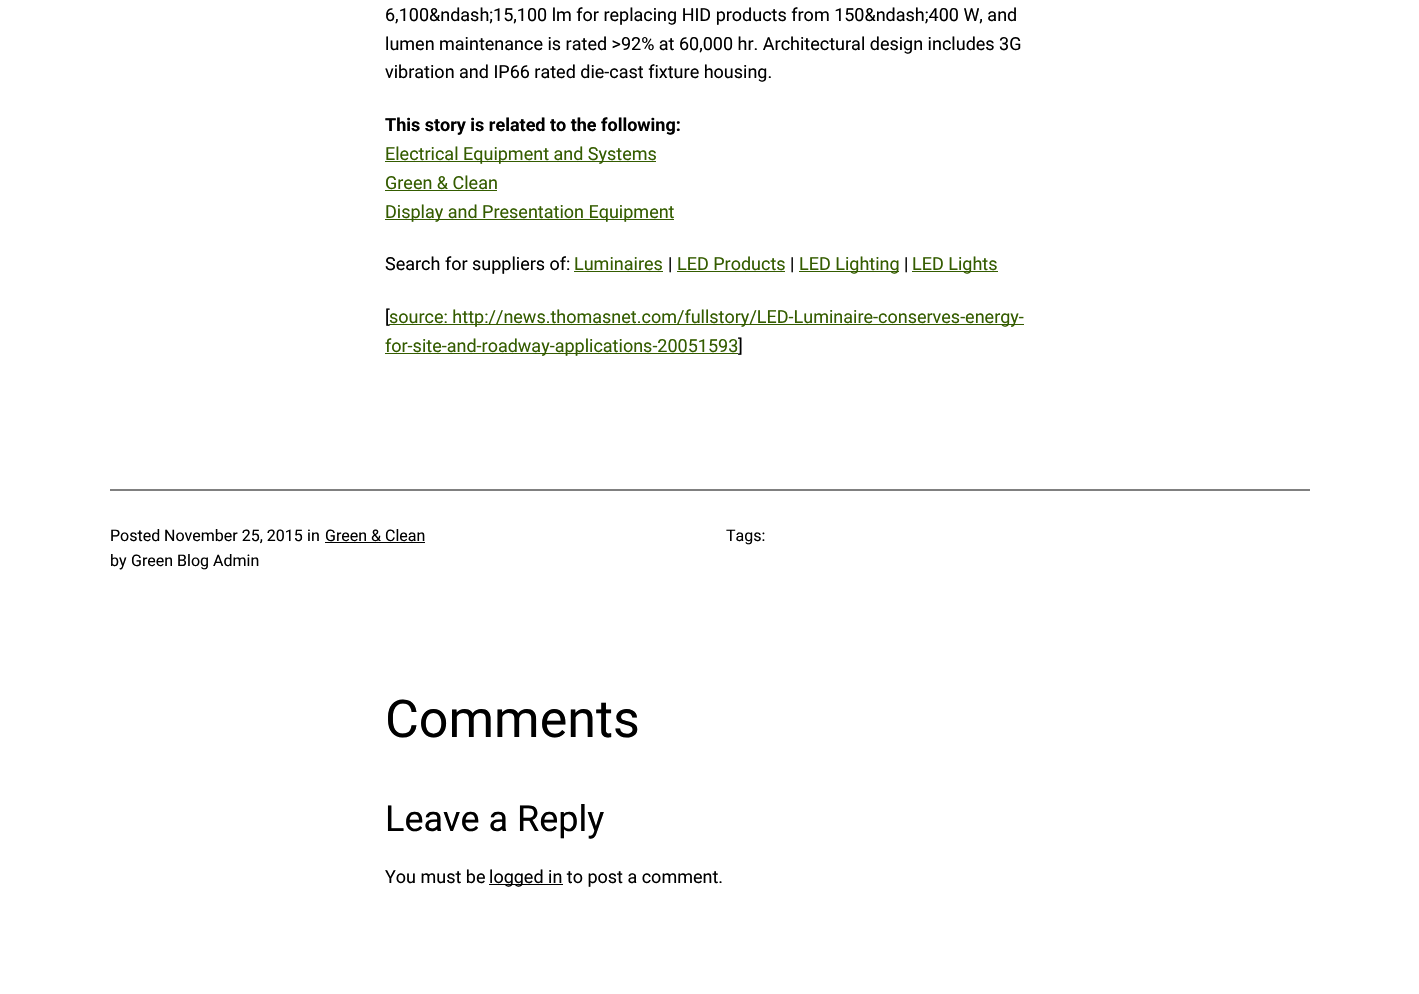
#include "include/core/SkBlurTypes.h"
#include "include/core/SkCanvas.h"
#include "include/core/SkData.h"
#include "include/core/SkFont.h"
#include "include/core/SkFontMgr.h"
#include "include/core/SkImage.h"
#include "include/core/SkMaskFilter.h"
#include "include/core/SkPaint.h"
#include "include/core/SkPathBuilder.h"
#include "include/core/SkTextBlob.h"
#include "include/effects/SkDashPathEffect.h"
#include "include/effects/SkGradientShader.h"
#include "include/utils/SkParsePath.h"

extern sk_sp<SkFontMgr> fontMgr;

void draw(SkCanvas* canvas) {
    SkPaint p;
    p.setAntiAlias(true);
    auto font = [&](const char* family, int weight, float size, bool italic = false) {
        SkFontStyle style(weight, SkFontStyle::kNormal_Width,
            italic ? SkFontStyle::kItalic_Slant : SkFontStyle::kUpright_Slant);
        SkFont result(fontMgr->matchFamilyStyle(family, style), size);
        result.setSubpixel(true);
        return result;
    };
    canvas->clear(0xFFFFFFFF);
    auto font1 = font("Roboto", 400, 18);
    p.setColor(0xFF000000);
    {
        const struct { const char* s; float x, y; } items[] = {
            {"6,100&ndash;15,100 lm for replacing HID products from 150&ndash;400 W, and", 385, 21},
            {"lumen maintenance is rated >92% at 60,000 hr. Architectural design includes 3G", 385, 50},
            {"vibration and IP66 rated die-cast fixture housing.", 385, 78},
        };
        for (auto [s, x, y] : items) {
            canvas->drawString(s, x, y, font1, p);
        }
    }
    auto font2 = font("Roboto", 700, 18);
    canvas->drawString("This story is related to the following:", 385, 131, font2, p);
    p.setColor(0xFF345C00);
    canvas->drawRect(SkRect::MakeLTRB(385, 161, 656, 162), p);
    canvas->drawString("Electrical Equipment and Systems", 385, 160, font1, p);
    canvas->drawString("Green & Clean", 385, 189, font1, p);
    canvas->drawRect(SkRect::MakeLTRB(385, 190, 497, 191), p);
    canvas->drawRect(SkRect::MakeLTRB(385, 219, 674, 220), p);
    canvas->drawString("Display and Presentation Equipment", 385, 218, font1, p);
    p.setColor(0xFF000000);
    canvas->drawString("Search for suppliers of:", 385, 270, font1, p);
    p.setColor(0xFF345C00);
    canvas->drawString("Luminaires", 574, 270, font1, p);
    canvas->drawRect(SkRect::MakeLTRB(574, 271, 663, 272), p);
    p.setColor(0xFF000000);
    canvas->drawString("|", 668, 270, font1, p);
    p.setColor(0xFF345C00);
    canvas->drawString("LED Products", 677, 270, font1, p);
    canvas->drawRect(SkRect::MakeLTRB(677, 271, 785, 272), p);
    p.setColor(0xFF000000);
    canvas->drawString("|", 790, 270, font1, p);
    p.setColor(0xFF345C00);
    canvas->drawRect(SkRect::MakeLTRB(799, 271, 899, 272), p);
    canvas->drawString("LED Lighting", 799, 270, font1, p);
    p.setColor(0xFF000000);
    canvas->drawString("|", 904, 270, font1, p);
    p.setColor(0xFF345C00);
    canvas->drawRect(SkRect::MakeLTRB(912, 271, 998, 272), p);
    canvas->drawString("LED Lights", 912, 270, font1, p);
    p.setColor(0xFF000000);
    canvas->drawString("[", 385, 323, font1, p);
    p.setColor(0xFF345C00);
    canvas->drawRect(SkRect::MakeLTRB(389, 324, 1024, 325), p);
    canvas->drawString("source: http://news.thomasnet.com/fullstory/LED-Luminaire-conserves-energy-", 389, 323, font1, p);
    canvas->drawRect(SkRect::MakeLTRB(385, 353, 738, 354), p);
    canvas->drawString("for-site-and-roadway-applications-20051593", 385, 352, font1, p);
    p.setColor(0xFF000000);
    canvas->drawString("]", 738, 352, font1, p);
    p.setColor(0xFF808080);
    canvas->drawRect(SkRect::MakeLTRB(110, 489, 1310, 491), p);
    auto font3 = font("Roboto", 400, 16);
    p.setColor(0xFF000000);
    {
        const struct { const char* s; float x, y; } items[] = {
            {"Posted", 110, 541},
            {"November 25, 2015", 164, 541},
            {"in", 307, 541},
            {"Green & Clean", 325, 541},
        };
        for (auto [s, x, y] : items) {
            canvas->drawString(s, x, y, font3, p);
        }
    }
    canvas->drawRect(SkRect::MakeLTRB(325, 542, 425, 543), p);
    {
        const struct { const char* s; float x, y; } items[] = {
            {"by", 110, 566},
            {"Green Blog Admin", 131, 566},
            {"Tags:", 726, 541},
        };
        for (auto [s, x, y] : items) {
            canvas->drawString(s, x, y, font3, p);
        }
    }
    auto font4 = font("Roboto", 400, 52);
    canvas->drawString("Comments", 385, 737, font4, p);
    auto font5 = font("Roboto", 400, 36);
    canvas->drawString("Leave a Reply", 385, 831, font5, p);
    canvas->drawString("You must be", 385, 883, font1, p);
    canvas->drawRect(SkRect::MakeLTRB(489, 884, 563, 885), p);
    canvas->drawString("logged in to post a comment.", 489, 883, font1, p);
}
